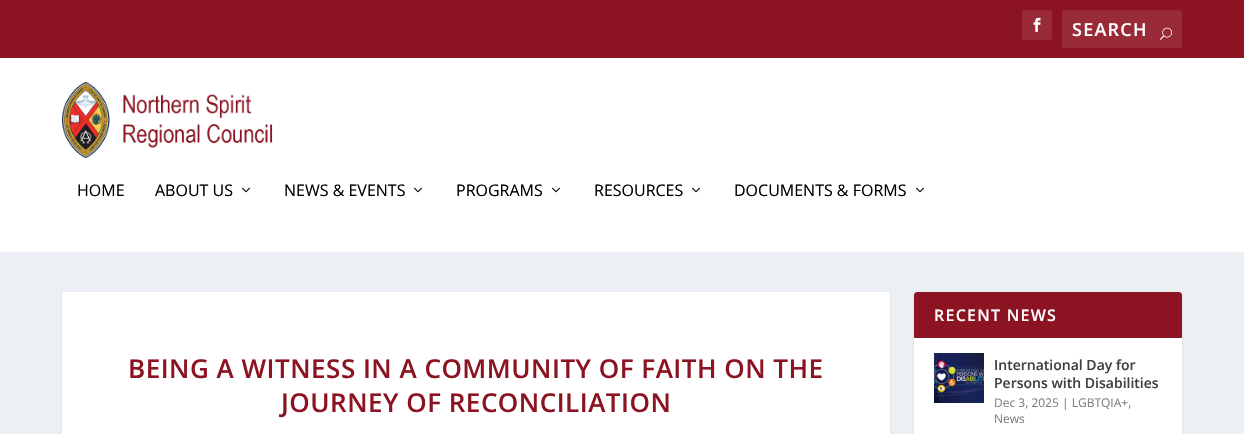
#include "include/core/SkBlurTypes.h"
#include "include/core/SkCanvas.h"
#include "include/core/SkData.h"
#include "include/core/SkFont.h"
#include "include/core/SkFontMgr.h"
#include "include/core/SkImage.h"
#include "include/core/SkMaskFilter.h"
#include "include/core/SkPaint.h"
#include "include/core/SkPathBuilder.h"
#include "include/core/SkTextBlob.h"
#include "include/effects/SkDashPathEffect.h"
#include "include/effects/SkGradientShader.h"
#include "include/utils/SkParsePath.h"

extern sk_sp<SkFontMgr> fontMgr;

void draw(SkCanvas* canvas) {
    SkPaint p;
    p.setAntiAlias(true);
    auto font = [&](const char* family, int weight, float size, bool italic = false) {
        SkFontStyle style(weight, SkFontStyle::kNormal_Width,
            italic ? SkFontStyle::kItalic_Slant : SkFontStyle::kUpright_Slant);
        SkFont result(fontMgr->matchFamilyStyle(family, style), size);
        result.setSubpixel(true);
        return result;
    };
    auto drawTracked = [&](const char* s, float x, float y, const SkFont& font, const SkPaint& ink, float letter, float word) {
        std::vector<SkGlyphID> glyphs(font.countText(s, strlen(s), SkTextEncoding::kUTF8));
        std::vector<float> xs(glyphs.size());
        font.textToGlyphs(s, strlen(s), SkTextEncoding::kUTF8, glyphs);
        font.getXPos(glyphs, xs, x);
        float extra = 0;
        for (size_t i = 0; i < glyphs.size(); i++) {
            xs[i] += extra;
            extra += letter + word * (glyphs[i] == font.unicharToGlyph(' '));
        }
        canvas->drawTextBlob(SkTextBlob::MakeFromPosHGlyphs(glyphs, xs, y, font), 0, 0, ink);
    };
    auto drawPhoto = [&](const char* path, float l, float t, float r, float b) {
        auto image = SkImages::DeferredFromEncodedData(SkData::MakeFromFileName(path));
        canvas->drawImageRect(image, SkRect::MakeLTRB(l, t, r, b), SkSamplingOptions());
    };
    canvas->clear(0xFFECF0F5);
    p.setColor(0xFF8C1321);
    canvas->drawRect(SkRect::MakeLTRB(0, 0, 1244, 58), p);
    p.setColor(0xFF982B37);
    canvas->drawRoundRect(SkRect::MakeLTRB(1022, 10, 1052, 40), 3, 3, p);
    drawPhoto("media/1.png", 1033, 17, 1041, 32);
    canvas->drawRoundRect(SkRect::MakeLTRB(1062, 10, 1182, 48), 3, 3, p);
    auto font1 = font("Open Sans", 600, 18);
    p.setColor(0xFFFFFFFF);
    drawTracked("SEARCH", 1072, 36, font1, p, 1.25f, 0);
    drawPhoto("media/2.png", 1160, 27, 1172, 40);
    canvas->drawRect(SkRect::MakeLTRB(0, 58, 1244, 252), p);
    drawPhoto("media/3.png", 62, 82, 273, 158);
    auto font2 = font("Open Sans", 400, 16);
    p.setColor(0xFF000000);
    canvas->drawString("HOME", 77, 196, font2, p);
    canvas->drawString("ABOUT US", 155, 196, font2, p);
    drawPhoto("media/4.png", 242, 187, 250, 193);
    canvas->drawString("NEWS & EVENTS", 284, 196, font2, p);
    drawPhoto("media/4.png", 414, 187, 422, 193);
    canvas->drawString("PROGRAMS", 456, 196, font2, p);
    drawPhoto("media/4.png", 552, 187, 560, 193);
    canvas->drawString("RESOURCES", 594, 196, font2, p);
    drawPhoto("media/4.png", 692, 187, 700, 193);
    canvas->drawString("DOCUMENTS & FORMS", 734, 196, font2, p);
    drawPhoto("media/4.png", 916, 187, 924, 193);
    p.setColor(0x1A000000);
    p.setMaskFilter(SkMaskFilter::MakeBlur(kNormal_SkBlurStyle, 1.5f));
    canvas->drawRoundRect(SkRect::MakeLTRB(62, 293, 890, 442), 3, 3, p);
    p.setMaskFilter(nullptr);
    p.setColor(0xFFFFFFFF);
    canvas->drawRoundRect(SkRect::MakeLTRB(62, 292, 890, 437), 3, 3, p);
    auto font3 = font("Open Sans", 600, 26);
    p.setColor(0xFF8C1321);
    drawTracked("BEING A WITNESS IN A COMMUNITY OF FAITH ON THE", 128, 378, font3, p, 0.5f, 0);
    drawTracked("JOURNEY OF RECONCILIATION", 281, 412, font3, p, 0.5f, 0);
    p.setColor(0x1A000000);
    p.setMaskFilter(SkMaskFilter::MakeBlur(kNormal_SkBlurStyle, 1.5f));
    canvas->drawRoundRect(SkRect::MakeLTRB(914, 293, 1182, 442), 3, 3, p);
    p.setMaskFilter(nullptr);
    p.setColor(0xFFFFFFFF);
    canvas->drawRoundRect(SkRect::MakeLTRB(914, 292, 1182, 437), 3, 3, p);
    p.setColor(0xFF8C1321);
    canvas->drawPath(SkPathBuilder().moveTo(917, 292).lineTo(1179, 292).cubicTo(1180.5f, 292, 1182, 293.5f, 1182, 295).lineTo(1182, 338).lineTo(914, 338).lineTo(914, 295).cubicTo(914, 293.5f, 915.5f, 292, 917, 292).close().detach(), p);
    auto font4 = font("Open Sans", 600, 16);
    p.setColor(0xFFFFFFFF);
    drawTracked("RECENT NEWS", 934, 321, font4, p, 1.25f, 0);
    drawPhoto("media/5.png", 934, 353, 984, 403);
    auto font5 = font("Open Sans", 600, 14);
    p.setColor(0xFF404040);
    canvas->drawString("International Day for", 994, 370, font5, p);
    canvas->drawString("Persons with Disabilities", 994, 388, font5, p);
    auto font6 = font("Open Sans", 400, 12);
    p.setColor(0xFF808080);
    canvas->drawString("Dec 3, 2025 | LGBTQIA+,", 994, 407, font6, p);
    canvas->drawString("News", 994, 423, font6, p);
}
